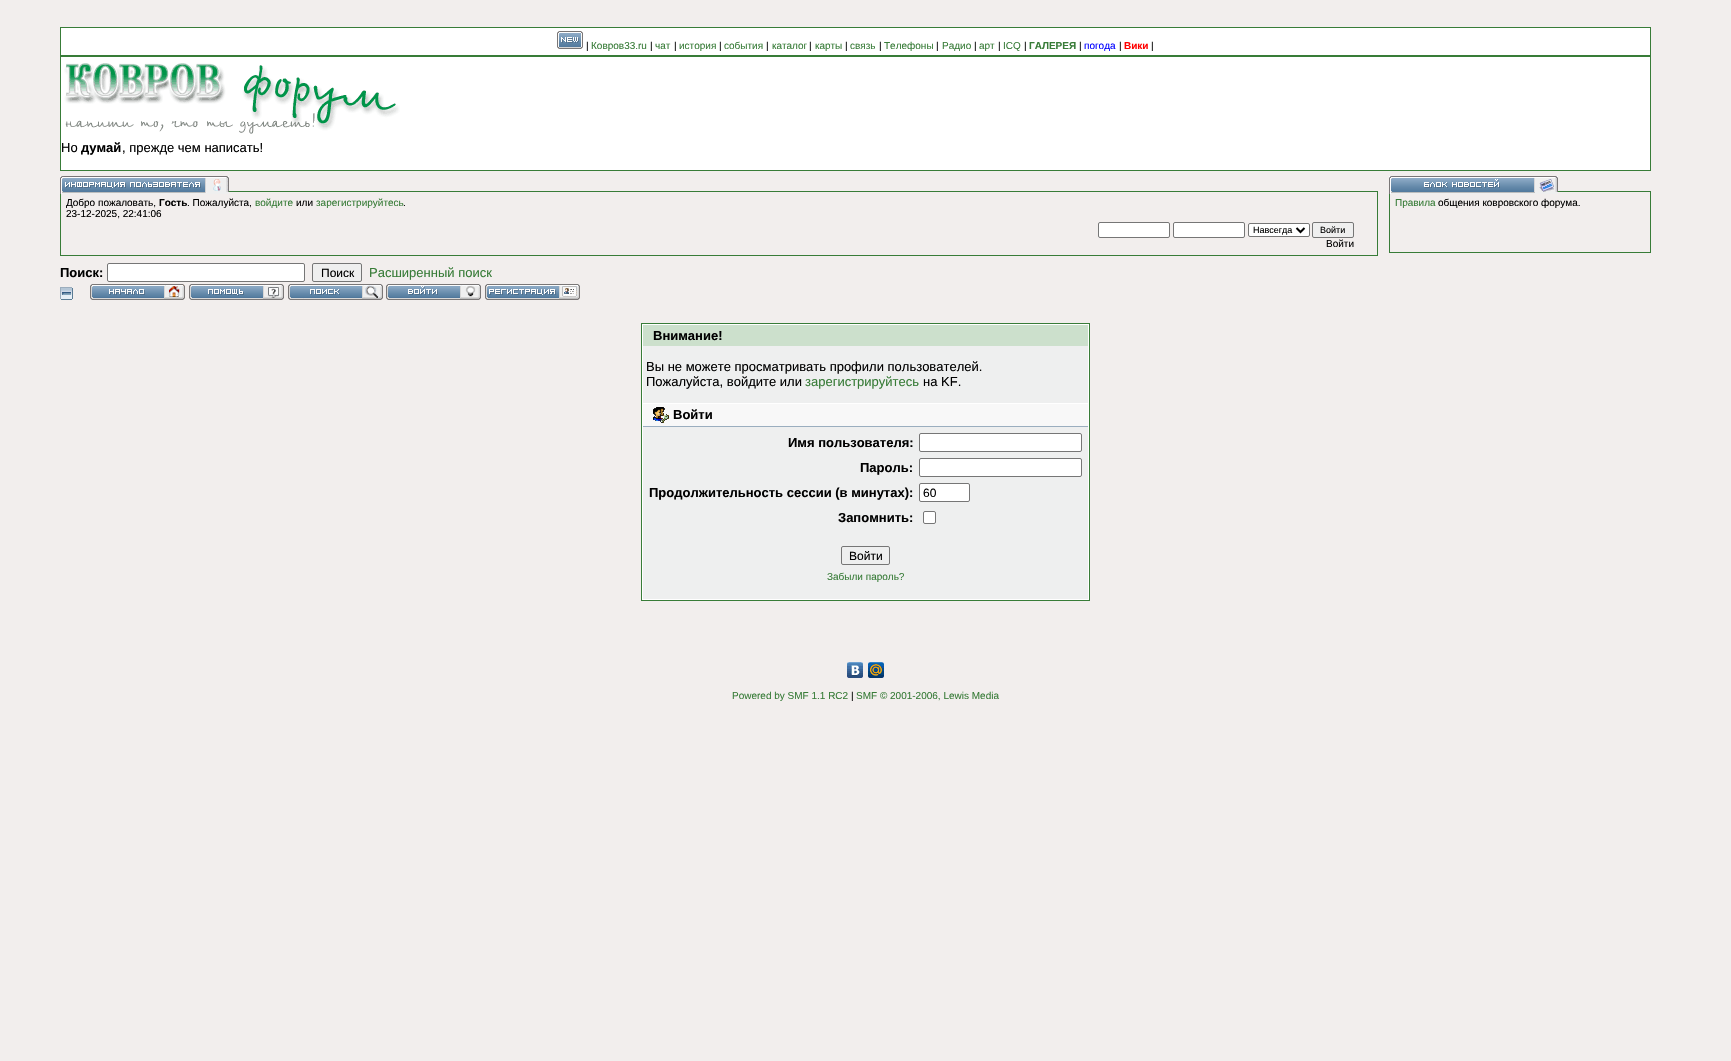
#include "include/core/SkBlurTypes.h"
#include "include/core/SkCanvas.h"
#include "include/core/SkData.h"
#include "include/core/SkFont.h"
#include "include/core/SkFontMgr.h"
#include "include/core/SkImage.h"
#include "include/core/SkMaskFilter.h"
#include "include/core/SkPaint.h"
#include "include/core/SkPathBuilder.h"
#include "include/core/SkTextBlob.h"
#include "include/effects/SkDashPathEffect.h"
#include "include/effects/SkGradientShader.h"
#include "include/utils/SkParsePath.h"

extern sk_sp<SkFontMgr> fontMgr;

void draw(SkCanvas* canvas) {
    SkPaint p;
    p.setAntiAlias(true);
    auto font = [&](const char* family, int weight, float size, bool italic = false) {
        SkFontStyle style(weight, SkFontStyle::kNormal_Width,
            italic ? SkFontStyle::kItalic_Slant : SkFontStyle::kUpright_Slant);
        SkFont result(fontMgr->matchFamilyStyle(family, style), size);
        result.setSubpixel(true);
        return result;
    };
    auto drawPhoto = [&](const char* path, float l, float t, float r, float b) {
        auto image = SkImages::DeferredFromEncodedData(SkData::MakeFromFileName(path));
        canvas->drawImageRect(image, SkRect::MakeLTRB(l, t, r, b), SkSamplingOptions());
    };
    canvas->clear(0xFFF2EEED);
    p.setColor(0xFF387C38);
    canvas->drawRect(SkRect::MakeLTRB(60, 27, 1651, 171), p);
    p.setColor(0xFFFFFFFF);
    canvas->drawRect(SkRect::MakeLTRB(61, 28, 1650, 55), p);
    drawPhoto("media/1.png", 557, 31, 583, 49);
    auto font1 = font("Liberation Sans", 400, 10);
    p.setColor(0xFF000000);
    canvas->drawString("|", 586, 49, font1, p);
    p.setColor(0xFF387C38);
    canvas->drawString("Ковров33.ru", 591, 49, font1, p);
    p.setColor(0xFF000000);
    canvas->drawString("|", 650, 49, font1, p);
    p.setColor(0xFF387C38);
    canvas->drawString("чат", 655, 49, font1, p);
    p.setColor(0xFF000000);
    canvas->drawString("|", 674, 49, font1, p);
    p.setColor(0xFF387C38);
    canvas->drawString("история", 679, 49, font1, p);
    p.setColor(0xFF000000);
    canvas->drawString("|", 719, 49, font1, p);
    p.setColor(0xFF387C38);
    canvas->drawString("события", 724, 49, font1, p);
    p.setColor(0xFF000000);
    canvas->drawString("|", 766, 49, font1, p);
    p.setColor(0xFF387C38);
    canvas->drawString("каталог", 772, 49, font1, p);
    p.setColor(0xFF000000);
    canvas->drawString("|", 809, 49, font1, p);
    p.setColor(0xFF387C38);
    canvas->drawString("карты", 815, 49, font1, p);
    p.setColor(0xFF000000);
    canvas->drawString("|", 845, 49, font1, p);
    p.setColor(0xFF387C38);
    canvas->drawString("связь", 850, 49, font1, p);
    p.setColor(0xFF000000);
    canvas->drawString("|", 879, 49, font1, p);
    p.setColor(0xFF387C38);
    canvas->drawString("Телефоны", 884, 49, font1, p);
    p.setColor(0xFF000000);
    canvas->drawString("|", 936, 49, font1, p);
    p.setColor(0xFF387C38);
    canvas->drawString("Радио", 942, 49, font1, p);
    p.setColor(0xFF000000);
    canvas->drawString("|", 974, 49, font1, p);
    p.setColor(0xFF387C38);
    canvas->drawString("арт", 979, 49, font1, p);
    p.setColor(0xFF000000);
    canvas->drawString("|", 998, 49, font1, p);
    p.setColor(0xFF387C38);
    canvas->drawString("ICQ", 1003, 49, font1, p);
    p.setColor(0xFF000000);
    canvas->drawString("|", 1024, 49, font1, p);
    auto font2 = font("Liberation Sans", 700, 10);
    p.setColor(0xFF387C38);
    canvas->drawString("ГАЛЕРЕЯ", 1029, 49, font2, p);
    p.setColor(0xFF000000);
    canvas->drawString("|", 1079, 49, font1, p);
    p.setColor(0xFF0000FF);
    canvas->drawString("погода", 1084, 49, font1, p);
    p.setColor(0xFF000000);
    canvas->drawString("|", 1119, 49, font1, p);
    p.setColor(0xFFFF0000);
    canvas->drawString("Вики", 1124, 49, font2, p);
    p.setColor(0xFF000000);
    canvas->drawString("|", 1151, 49, font1, p);
    p.setColor(0xFFFFFFFF);
    canvas->drawRect(SkRect::MakeLTRB(61, 57, 1650, 170), p);
    drawPhoto("media/2.png", 64, 63, 400, 134);
    auto font3 = font("Liberation Sans", 400, 13);
    p.setColor(0xFF000000);
    canvas->drawString("Но", 61, 152, font3, p);
    auto font4 = font("Liberation Sans", 700, 13);
    canvas->drawString("думай", 81, 152, font4, p);
    canvas->drawString(", прежде чем написать!", 122, 152, font3, p);
    p.setStyle(SkPaint::kStroke_Style);
    p.setStrokeWidth(1);
    p.setColor(0xFF387C38);
    canvas->drawRect(SkRect::MakeLTRB(60.5f, 191.5f, 1377.5f, 255.5f), p);
    drawPhoto("media/3.png", 60, 176, 229, 194);
    p.setStyle(SkPaint::kFill_Style);
    p.setColor(0xFF000000);
    canvas->drawString("Добро пожаловать,", 66, 206, font1, p);
    canvas->drawString("Гость", 159, 206, font2, p);
    canvas->drawString(". Пожалуйста,", 187, 206, font1, p);
    p.setColor(0xFF387C38);
    canvas->drawString("войдите", 255, 206, font1, p);
    p.setColor(0xFF000000);
    canvas->drawString("или", 296, 206, font1, p);
    p.setColor(0xFF387C38);
    canvas->drawString("зарегистрируйтесь", 316, 206, font1, p);
    p.setColor(0xFF000000);
    canvas->drawString(".", 403, 206, font1, p);
    canvas->drawString("23-12-2025, 22:41:06", 66, 217, font1, p);
    p.setColor(0xFFFFFFFF);
    canvas->drawRoundRect(SkRect::MakeLTRB(1098.5f, 222.5f, 1169.5f, 237.5f), 1.5f, 1.5f, p);
    p.setStyle(SkPaint::kStroke_Style);
    p.setColor(0xFF767676);
    canvas->drawRoundRect(SkRect::MakeLTRB(1098.5f, 222.5f, 1169.5f, 237.5f), 1.5f, 1.5f, p);
    p.setStyle(SkPaint::kFill_Style);
    p.setColor(0xFFFFFFFF);
    canvas->drawRoundRect(SkRect::MakeLTRB(1173.5f, 222.5f, 1244.5f, 237.5f), 1.5f, 1.5f, p);
    p.setStyle(SkPaint::kStroke_Style);
    p.setColor(0xFF767676);
    canvas->drawRoundRect(SkRect::MakeLTRB(1173.5f, 222.5f, 1244.5f, 237.5f), 1.5f, 1.5f, p);
    p.setStyle(SkPaint::kFill_Style);
    p.setColor(0xFFFFFFFF);
    canvas->drawRoundRect(SkRect::MakeLTRB(1248.5f, 223.5f, 1309.5f, 236.5f), 1.5f, 1.5f, p);
    p.setStyle(SkPaint::kStroke_Style);
    p.setColor(0xFF767676);
    canvas->drawRoundRect(SkRect::MakeLTRB(1248.5f, 223.5f, 1309.5f, 236.5f), 1.5f, 1.5f, p);
    p.setStrokeWidth(2);
    p.setColor(0xFF000000);
    canvas->drawPath(SkPathBuilder().moveTo(1296.5f, 228).lineTo(1300.5f, 232).lineTo(1304.5f, 228).detach(), p);
    auto font5 = font("Liberation Sans", 400, 9);
    p.setStyle(SkPaint::kFill_Style);
    canvas->drawString("Навсегда", 1253, 233, font5, p);
    p.setColor(0xFFEFEFEF);
    canvas->drawRoundRect(SkRect::MakeLTRB(1312.5f, 222.5f, 1353.5f, 237.5f), 1.5f, 1.5f, p);
    p.setStyle(SkPaint::kStroke_Style);
    p.setStrokeWidth(1);
    p.setColor(0xFF767676);
    canvas->drawRoundRect(SkRect::MakeLTRB(1312.5f, 222.5f, 1353.5f, 237.5f), 1.5f, 1.5f, p);
    p.setStyle(SkPaint::kFill_Style);
    p.setColor(0xFF000000);
    canvas->drawString("Войти", 1320, 233, font5, p);
    canvas->drawString("Войти", 1326, 247, font1, p);
    canvas->drawString("Поиск:", 60, 277, font4, p);
    p.setColor(0xFFFFFFFF);
    canvas->drawRoundRect(SkRect::MakeLTRB(107.5f, 263.5f, 304.5f, 281.5f), 1.5f, 1.5f, p);
    p.setStyle(SkPaint::kStroke_Style);
    p.setColor(0xFF767676);
    canvas->drawRoundRect(SkRect::MakeLTRB(107.5f, 263.5f, 304.5f, 281.5f), 1.5f, 1.5f, p);
    p.setStyle(SkPaint::kFill_Style);
    p.setColor(0xFFEFEFEF);
    canvas->drawRoundRect(SkRect::MakeLTRB(312.5f, 263.5f, 361.5f, 281.5f), 1.5f, 1.5f, p);
    p.setStyle(SkPaint::kStroke_Style);
    p.setColor(0xFF767676);
    canvas->drawRoundRect(SkRect::MakeLTRB(312.5f, 263.5f, 361.5f, 281.5f), 1.5f, 1.5f, p);
    auto font6 = font("Liberation Sans", 400, 12);
    p.setStyle(SkPaint::kFill_Style);
    p.setColor(0xFF000000);
    canvas->drawString("Поиск", 321, 277, font6, p);
    p.setColor(0xFF387C38);
    canvas->drawString("Расширенный поиск", 369, 277, font3, p);
    p.setStyle(SkPaint::kStroke_Style);
    canvas->drawRect(SkRect::MakeLTRB(1389.5f, 191.5f, 1650.5f, 252.5f), p);
    drawPhoto("media/4.png", 1389, 176, 1558, 194);
    p.setStyle(SkPaint::kFill_Style);
    canvas->drawString("Правила", 1395, 206, font1, p);
    p.setColor(0xFF000000);
    canvas->drawString("общения ковровского форума.", 1438, 206, font1, p);
    drawPhoto("media/5.png", 60, 287, 73, 300);
    drawPhoto("media/6.png", 90, 284, 185, 300);
    drawPhoto("media/7.png", 189, 284, 284, 300);
    drawPhoto("media/8.png", 288, 284, 383, 300);
    drawPhoto("media/9.png", 386, 284, 481, 300);
    drawPhoto("media/10.png", 485, 284, 580, 300);
    p.setColor(0xFFFFFFFF);
    canvas->drawRect(SkRect::MakeLTRB(641.5f, 323.5f, 1089.5f, 600.5f), p);
    p.setStyle(SkPaint::kStroke_Style);
    p.setColor(0xFF387C38);
    canvas->drawRect(SkRect::MakeLTRB(641.5f, 323.5f, 1089.5f, 600.5f), p);
    p.setStyle(SkPaint::kFill_Style);
    p.setColor(0xFFCCE0CC);
    canvas->drawRect(SkRect::MakeLTRB(643, 325, 1088, 346), p);
    p.setColor(0xFF000000);
    canvas->drawString("Внимание!", 653, 340, font4, p);
    p.setColor(0xFFEEEFEF);
    canvas->drawRect(SkRect::MakeLTRB(643, 346, 1088, 403), p);
    p.setColor(0xFF000000);
    canvas->drawString("Вы не можете просматривать профили пользователей.", 646, 371, font3, p);
    canvas->drawString("Пожалуйста, войдите или", 646, 386, font3, p);
    p.setColor(0xFF387C38);
    canvas->drawString("зарегистрируйтесь", 805, 386, font3, p);
    p.setColor(0xFF000000);
    canvas->drawString("на KF.", 923, 386, font3, p);
    p.setColor(0xFFF8F8F8);
    canvas->drawRect(SkRect::MakeLTRB(643, 404, 1088, 426), p);
    p.setColor(0xFF9BAEBF);
    canvas->drawRect(SkRect::MakeLTRB(643, 426, 1088, 427), p);
    drawPhoto("media/11.png", 653, 407, 669, 423);
    p.setColor(0xFF000000);
    canvas->drawString("Войти", 673, 419, font4, p);
    p.setColor(0xFFEEEFEF);
    canvas->drawRect(SkRect::MakeLTRB(643, 427, 1088, 599), p);
    p.setColor(0xFF000000);
    canvas->drawString("Имя пользователя:", 788, 447, font4, p);
    p.setColor(0xFFFFFFFF);
    canvas->drawRoundRect(SkRect::MakeLTRB(919.5f, 433.5f, 1081.5f, 451.5f), 1.5f, 1.5f, p);
    p.setStyle(SkPaint::kStroke_Style);
    p.setColor(0xFF767676);
    canvas->drawRoundRect(SkRect::MakeLTRB(919.5f, 433.5f, 1081.5f, 451.5f), 1.5f, 1.5f, p);
    p.setStyle(SkPaint::kFill_Style);
    p.setColor(0xFF000000);
    canvas->drawString("Пароль:", 860, 472, font4, p);
    p.setColor(0xFFFFFFFF);
    canvas->drawRoundRect(SkRect::MakeLTRB(919.5f, 458.5f, 1081.5f, 476.5f), 1.5f, 1.5f, p);
    p.setStyle(SkPaint::kStroke_Style);
    p.setColor(0xFF767676);
    canvas->drawRoundRect(SkRect::MakeLTRB(919.5f, 458.5f, 1081.5f, 476.5f), 1.5f, 1.5f, p);
    p.setStyle(SkPaint::kFill_Style);
    p.setColor(0xFF000000);
    canvas->drawString("Продолжительность сессии (в минутах):", 649, 497, font4, p);
    p.setColor(0xFFFFFFFF);
    canvas->drawRoundRect(SkRect::MakeLTRB(919.5f, 483.5f, 969.5f, 501.5f), 1.5f, 1.5f, p);
    p.setStyle(SkPaint::kStroke_Style);
    p.setColor(0xFF767676);
    canvas->drawRoundRect(SkRect::MakeLTRB(919.5f, 483.5f, 969.5f, 501.5f), 1.5f, 1.5f, p);
    p.setStyle(SkPaint::kFill_Style);
    p.setColor(0xFF000000);
    canvas->drawString("60", 923, 497, font6, p);
    canvas->drawString("Запомнить:", 838, 522, font4, p);
    p.setColor(0xFFFFFFFF);
    canvas->drawRoundRect(SkRect::MakeLTRB(923.5f, 511.5f, 935.5f, 523.5f), 1.5f, 1.5f, p);
    p.setStyle(SkPaint::kStroke_Style);
    p.setColor(0xFF767676);
    canvas->drawRoundRect(SkRect::MakeLTRB(923.5f, 511.5f, 935.5f, 523.5f), 1.5f, 1.5f, p);
    canvas->drawRoundRect(SkRect::MakeLTRB(841.5f, 546.5f, 889.5f, 564.5f), 1.5f, 1.5f, p);
    p.setStyle(SkPaint::kFill_Style);
    p.setColor(0xFF000000);
    canvas->drawString("Войти", 849, 560, font6, p);
    p.setColor(0xFF387C38);
    canvas->drawString("Забыли пароль?", 827, 580, font1, p);
    drawPhoto("media/12.png", 847, 662, 863, 678);
    drawPhoto("media/13.png", 868, 662, 884, 678);
    canvas->drawString("Powered by SMF 1.1 RC2", 732, 699, font1, p);
    p.setColor(0xFF000000);
    canvas->drawString("|", 851, 699, font1, p);
    p.setColor(0xFF387C38);
    canvas->drawString("SMF © 2001-2006, Lewis Media", 856, 699, font1, p);
}
